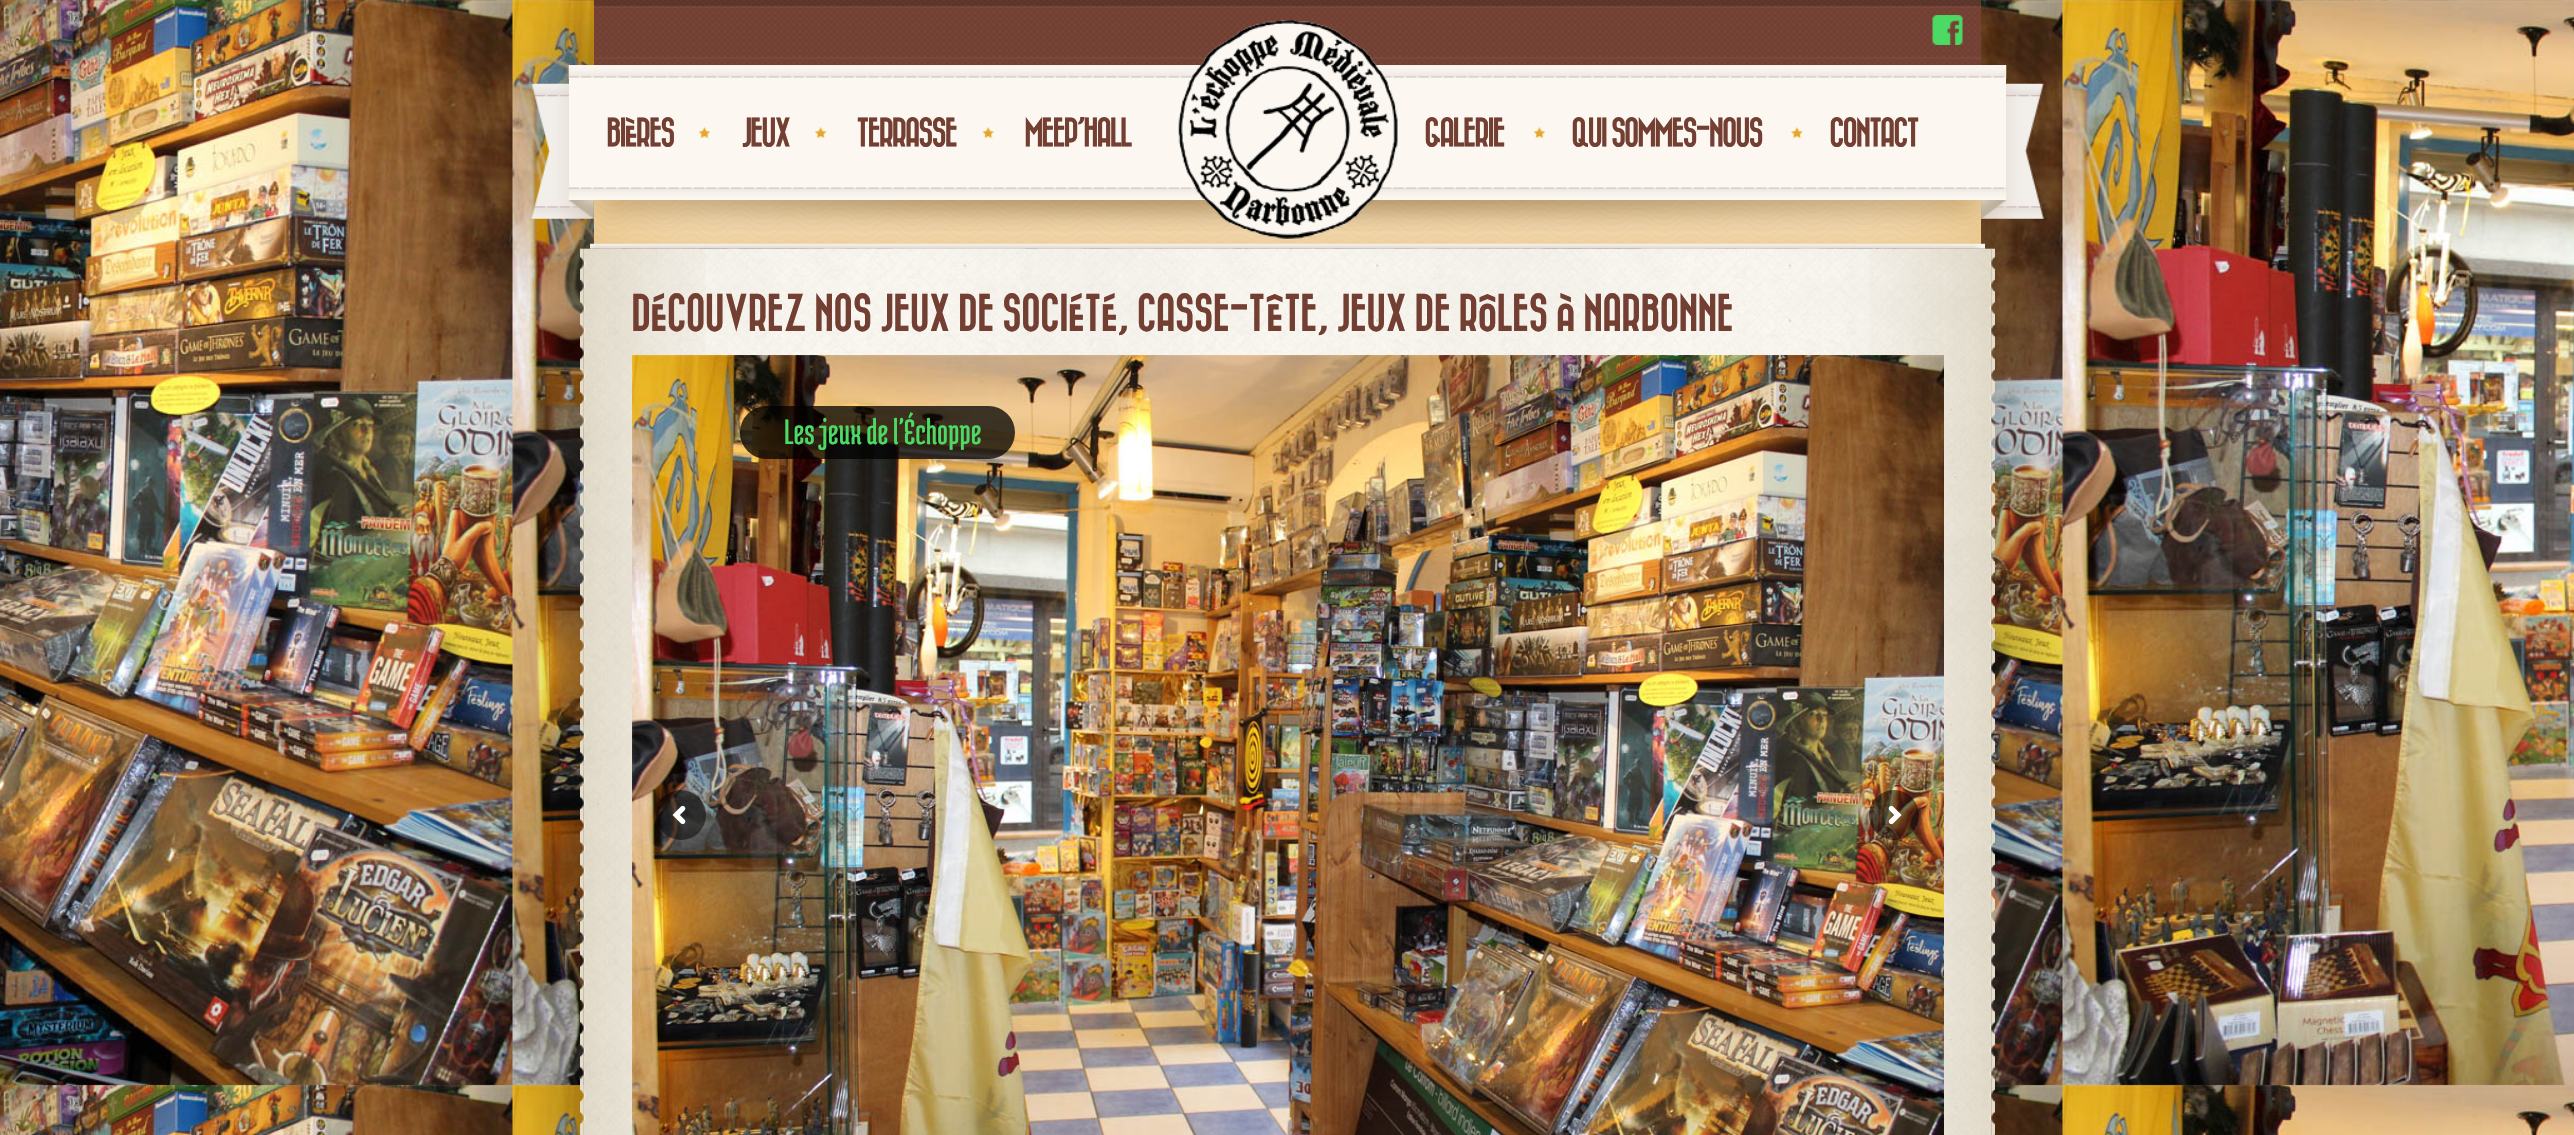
#include "include/core/SkBlurTypes.h"
#include "include/core/SkCanvas.h"
#include "include/core/SkData.h"
#include "include/core/SkFont.h"
#include "include/core/SkFontMgr.h"
#include "include/core/SkImage.h"
#include "include/core/SkMaskFilter.h"
#include "include/core/SkPaint.h"
#include "include/core/SkPathBuilder.h"
#include "include/core/SkTextBlob.h"
#include "include/effects/SkDashPathEffect.h"
#include "include/effects/SkGradientShader.h"
#include "include/utils/SkParsePath.h"

extern sk_sp<SkFontMgr> fontMgr;

void draw(SkCanvas* canvas) {
    SkPaint p;
    p.setAntiAlias(true);
    auto font = [&](const char* family, int weight, float size, bool italic = false) {
        SkFontStyle style(weight, SkFontStyle::kNormal_Width,
            italic ? SkFontStyle::kItalic_Slant : SkFontStyle::kUpright_Slant);
        SkFont result(fontMgr->matchFamilyStyle(family, style), size);
        result.setSubpixel(true);
        return result;
    };
    auto drawTracked = [&](const char* s, float x, float y, const SkFont& font, const SkPaint& ink, float letter, float word) {
        std::vector<SkGlyphID> glyphs(font.countText(s, strlen(s), SkTextEncoding::kUTF8));
        std::vector<float> xs(glyphs.size());
        font.textToGlyphs(s, strlen(s), SkTextEncoding::kUTF8, glyphs);
        font.getXPos(glyphs, xs, x);
        float extra = 0;
        for (size_t i = 0; i < glyphs.size(); i++) {
            xs[i] += extra;
            extra += letter + word * (glyphs[i] == font.unicharToGlyph(' '));
        }
        canvas->drawTextBlob(SkTextBlob::MakeFromPosHGlyphs(glyphs, xs, y, font), 0, 0, ink);
    };
    auto drawPhoto = [&](const char* path, float l, float t, float r, float b) {
        auto image = SkImages::DeferredFromEncodedData(SkData::MakeFromFileName(path));
        canvas->drawImageRect(image, SkRect::MakeLTRB(l, t, r, b), SkSamplingOptions());
    };
    canvas->clear(0xFFFFFFFF);
    drawPhoto("media/1.png", 0, 0, 2574, 1135);
    p.setColor(0x4D000000);
    p.setMaskFilter(SkMaskFilter::MakeBlur(kNormal_SkBlurStyle, 37.5f));
    canvas->drawRect(SkRect::MakeLTRB(564, 15, 2011, 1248), p);
    p.setMaskFilter(nullptr);
    p.setColor(0xFF723F32);
    canvas->drawRect(SkRect::MakeLTRB(594, 0, 1981, 65), p);
    drawPhoto("media/2.png", 594, 0, 1981, 65);
    drawPhoto("media/3.png", 593, 0, 1981, 8);
    drawPhoto("media/4.png", 1932, 15, 1963, 45);
    drawPhoto("media/5.png", 594, 57, 1981, 59);
    p.setColor(0xFFF6E5C8);
    canvas->drawRect(SkRect::MakeLTRB(594, 200, 1981, 244), p);
    drawPhoto("media/6.png", 594, 200, 1981, 244);
    drawPhoto("media/7.png", 531, 83, 594, 219);
    drawPhoto("media/18.png", 1981, 83, 2044, 219);
    p.setColor(0xFFFCF8F1);
    canvas->drawRect(SkRect::MakeLTRB(569, 78, 2006, 188), p);
    drawPhoto("media/8.png", 568, 65, 2007, 79);
    drawPhoto("media/9.png", 568, 187, 2007, 200);
    drawPhoto("media/20.png", 594, 200, 1981, 231);
    drawPhoto("media/21.png", 599, 248, 1978, 249);
    drawPhoto("media/22.png", 590, 243, 1985, 249);
    drawPhoto("media/19.png", 593, 200, 1982, 244);
    drawPhoto("media/10.png", 1178, 20, 1398, 239);
    auto font1 = font("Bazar", 500, 30);
    p.setColor(0xFF723F32);
    drawTracked("BIÈRES", 606, 141, font1, p, -2.5f, 0);
    drawPhoto("media/11.png", 698, 127, 710, 139);
    drawTracked("JEUX", 741, 141, font1, p, -2.5f, 0);
    drawPhoto("media/12.png", 815, 127, 827, 139);
    drawTracked("TERRASSE", 856, 141, font1, p, -2.5f, 0);
    drawPhoto("media/13.png", 982, 127, 994, 139);
    drawTracked("MEEP’HALL", 1024, 141, font1, p, -2.5f, 0);
    drawTracked("GALERIE", 1424, 141, font1, p, -2.5f, 0);
    drawPhoto("media/14.png", 1533, 127, 1545, 139);
    drawTracked("QUI SOMMES-NOUS", 1571, 141, font1, p, -2.5f, 0);
    drawPhoto("media/15.png", 1791, 127, 1803, 139);
    drawTracked("CONTACT", 1829, 141, font1, p, -2.5f, 0);
    drawPhoto("media/16.png", 568, 200, 594, 219);
    drawPhoto("media/17.png", 1981, 200, 2007, 219);
    drawPhoto("media/23.png", 580, 248, 584, 1135);
    drawPhoto("media/24.png", 1991, 248, 1995, 1135);
    drawPhoto("media/27.png", 583, 248, 1992, 1135);
    drawPhoto("media/25.png", 580, 248, 706, 1135);
    drawPhoto("media/26.png", 1869, 248, 1995, 1135);
    auto font2 = font("Bazar", 500, 38.75f);
    drawTracked("DÉCOUVREZ NOS JEUX DE SOCIÉTÉ, CASSE-TÊTE, JEUX DE RÔLES À NARBONNE", 631, 324, font2, p, -1.25f, 0);
    drawPhoto("media/28.png", 632, 355, 1944, 1135);
    p.setColor(0xBF000000);
    canvas->drawRoundRect(SkRect::MakeLTRB(740, 406, 1015, 459), 26.5f, 26.5f, p);
    auto font3 = font("Medula One", 400, 37.5f);
    p.setColor(0xFF4CD964);
    canvas->drawString("Les jeux de l'Échoppe", 784, 444, font3, p);
    p.setColor(0x80000000);
    canvas->drawCircle(681, 815, 25, p);
    drawPhoto("media/29.png", 672, 805, 686, 825);
    canvas->drawCircle(1894, 815, 25, p);
    drawPhoto("media/30.png", 1888, 805, 1902, 825);
}
